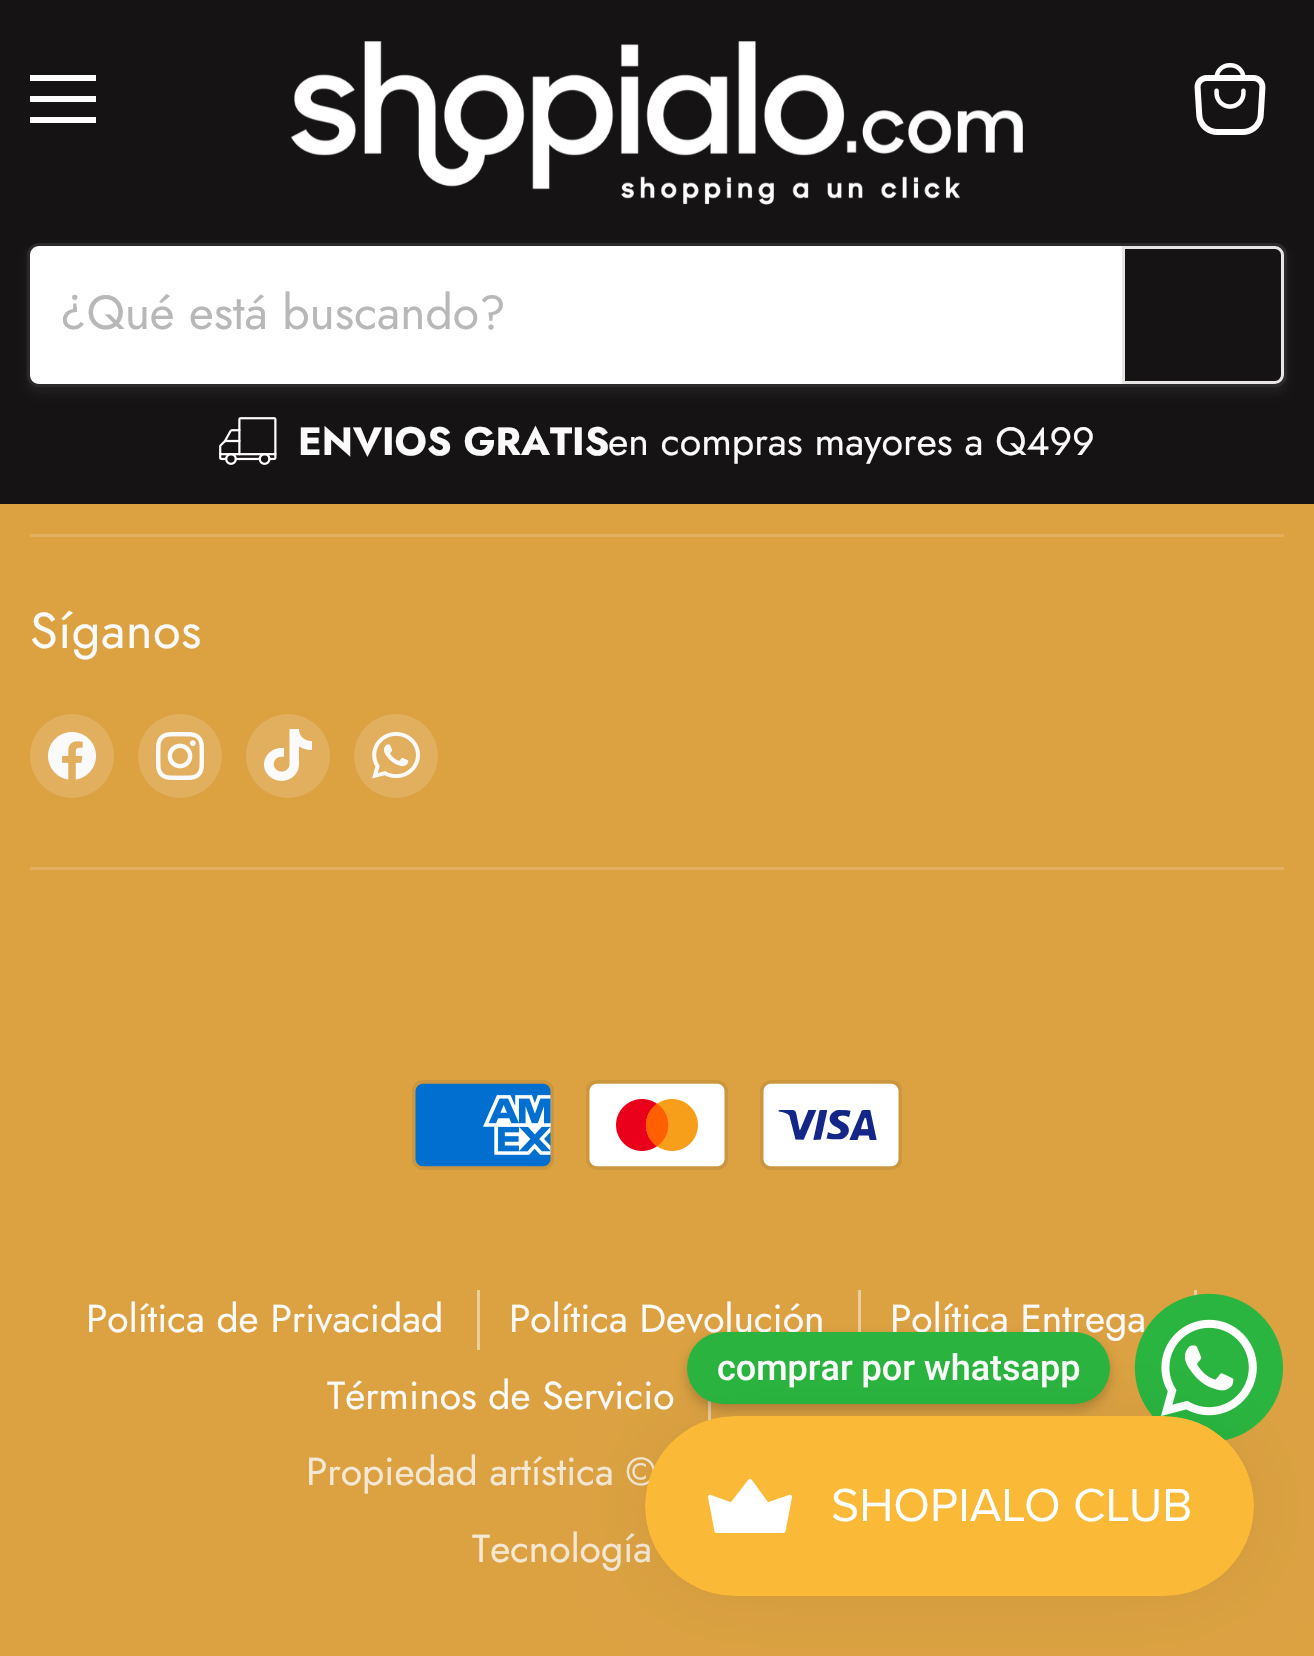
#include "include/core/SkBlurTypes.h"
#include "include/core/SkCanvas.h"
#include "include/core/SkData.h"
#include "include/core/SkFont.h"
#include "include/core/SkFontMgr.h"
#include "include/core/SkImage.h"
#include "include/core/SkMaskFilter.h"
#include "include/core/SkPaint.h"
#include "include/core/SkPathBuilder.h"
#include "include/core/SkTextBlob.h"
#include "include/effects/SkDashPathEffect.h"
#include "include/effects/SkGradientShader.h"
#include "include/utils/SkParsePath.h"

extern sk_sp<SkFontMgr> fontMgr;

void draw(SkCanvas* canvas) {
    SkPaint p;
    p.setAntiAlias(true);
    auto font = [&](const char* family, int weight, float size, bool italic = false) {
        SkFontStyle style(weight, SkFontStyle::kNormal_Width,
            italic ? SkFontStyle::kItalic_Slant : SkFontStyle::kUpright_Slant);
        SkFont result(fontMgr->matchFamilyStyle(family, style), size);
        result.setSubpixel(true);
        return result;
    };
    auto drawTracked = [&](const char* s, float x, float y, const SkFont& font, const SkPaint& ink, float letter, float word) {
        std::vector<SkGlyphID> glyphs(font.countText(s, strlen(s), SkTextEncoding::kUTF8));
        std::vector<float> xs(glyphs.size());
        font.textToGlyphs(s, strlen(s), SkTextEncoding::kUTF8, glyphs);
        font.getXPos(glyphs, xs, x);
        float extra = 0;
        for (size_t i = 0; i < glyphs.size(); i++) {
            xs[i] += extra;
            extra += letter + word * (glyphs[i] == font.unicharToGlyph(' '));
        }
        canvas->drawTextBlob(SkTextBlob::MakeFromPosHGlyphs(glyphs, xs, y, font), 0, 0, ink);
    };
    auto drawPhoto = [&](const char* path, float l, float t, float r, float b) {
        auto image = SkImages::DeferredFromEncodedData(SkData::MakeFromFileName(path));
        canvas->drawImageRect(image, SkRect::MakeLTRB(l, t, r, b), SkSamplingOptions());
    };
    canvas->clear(0xFFDCA242);
    {
        const struct { float l, t, r, b; SkColor color; } items[] = {
            {0, 0, 1314, 504, 0xFF151313},
            {30, 75, 96, 81, 0xFFFFFFFF},
            {30, 96, 96, 102, 0xFFFFFFFF},
            {30, 117, 96, 123, 0xFFFFFFFF},
        };
        for (auto [l, t, r, b, color] : items) {
            p.setColor(color);
            canvas->drawRect(SkRect::MakeLTRB(l, t, r, b), p);
        }
    }
    drawPhoto("media/1.png", 1194, 63, 1266, 135);
    drawPhoto("media/2.png", 291, 41, 1023, 205);
    canvas->save();
    canvas->clipPath(SkPathBuilder(SkPathFillType::kEvenOdd).moveTo(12, 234).lineTo(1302, 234).lineTo(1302, 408).lineTo(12, 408).close().moveTo(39, 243).lineTo(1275, 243).cubicTo(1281.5f, 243, 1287, 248.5f, 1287, 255).lineTo(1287, 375).cubicTo(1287, 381.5f, 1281.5f, 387, 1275, 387).lineTo(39, 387).cubicTo(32.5f, 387, 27, 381.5f, 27, 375).lineTo(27, 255).cubicTo(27, 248.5f, 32.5f, 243, 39, 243).close().detach(), true);
    p.setColor(0x1C808080);
    p.setMaskFilter(SkMaskFilter::MakeBlur(kNormal_SkBlurStyle, 4.5f));
    canvas->drawRoundRect(SkRect::MakeLTRB(27, 249, 1287, 393), 12, 12, p);
    p.setMaskFilter(nullptr);
    canvas->restore();
    p.setStyle(SkPaint::kStroke_Style);
    p.setStrokeWidth(3);
    p.setColor(0x33808080);
    canvas->drawRoundRect(SkRect::MakeLTRB(28.5f, 244.5f, 1285.5f, 385.5f), 10.5f, 10.5f, p);
    p.setStyle(SkPaint::kFill_Style);
    p.setColor(0xFFFFFFFF);
    canvas->drawPath(SkPathBuilder().moveTo(39, 246).lineTo(1122, 246).lineTo(1122, 384).lineTo(39, 384).cubicTo(34, 384, 30, 380, 30, 375).lineTo(30, 255).cubicTo(30, 250, 34, 246, 39, 246).close().detach(), p);
    auto font1 = font("Jost", 400, 48);
    p.setColor(0xFFB8B8B8);
    canvas->drawString("¿Qué está buscando?", 60, 329, font1, p);
    p.setStyle(SkPaint::kStroke_Style);
    p.setColor(0xFFE7E4E3);
    canvas->drawPath(SkPathBuilder().moveTo(1123.5f, 247.5f).lineTo(1275, 247.5f).cubicTo(1279, 247.5f, 1282.5f, 251, 1282.5f, 255).lineTo(1282.5f, 375).cubicTo(1282.5f, 379, 1279, 382.5f, 1275, 382.5f).lineTo(1123.5f, 382.5f).close().detach(), p);
    drawPhoto("media/3.png", 219, 417, 277, 465);
    auto font2 = font("Jost", 700, 39.4f);
    p.setStyle(SkPaint::kFill_Style);
    p.setColor(0xFFFAFAFA);
    canvas->drawString("ENVIOS GRATIS", 298, 455, font2, p);
    auto font3 = font("Jost", 400, 39.4f);
    canvas->drawString("en compras mayores a Q499", 608, 455, font3, p);
    p.setColor(0xFFE1AF5E);
    canvas->drawRect(SkRect::MakeLTRB(30, 534, 1284, 537), p);
    canvas->drawRect(SkRect::MakeLTRB(30, 867, 1284, 870), p);
    auto font4 = font("Jost", 400, 50.5f);
    p.setColor(0xFFFAFAFA);
    drawTracked("Síganos", 30, 648, font4, p, 0.5f, 0);
    p.setColor(0xFFE1AF5E);
    canvas->drawCircle(72, 756, 42, p);
    drawPhoto("media/4.png", 48, 732, 96, 780);
    canvas->drawCircle(180, 756, 42, p);
    drawPhoto("media/5.png", 156, 732, 204, 780);
    canvas->drawCircle(288, 756, 42, p);
    drawPhoto("media/6.png", 264, 729, 312, 781);
    canvas->drawCircle(396, 756, 42, p);
    drawPhoto("media/7.png", 372, 732, 420, 779);
    drawPhoto("media/8.png", 412, 1080, 554, 1170);
    drawPhoto("media/9.png", 586, 1080, 728, 1170);
    drawPhoto("media/10.png", 760, 1080, 902, 1170);
    p.setColor(0xFFEBCE9E);
    canvas->drawRect(SkRect::MakeLTRB(477, 1290, 480, 1350), p);
    auto font5 = font("Jost", 400, 39);
    p.setColor(0xFFFAFAFA);
    canvas->drawString("Política de Privacidad", 86, 1332, font5, p);
    p.setColor(0xFFEBCE9E);
    canvas->drawRect(SkRect::MakeLTRB(858, 1290, 861, 1332), p);
    p.setColor(0xFFFAFAFA);
    canvas->drawString("Política Devolución", 509, 1332, font5, p);
    p.setColor(0xFFEBCE9E);
    canvas->drawRect(SkRect::MakeLTRB(1194, 1290, 1197, 1296), p);
    p.setColor(0xFFFAFAFA);
    canvas->drawString("Política Entrega", 890, 1332, font5, p);
    p.setColor(0xFFEBCE9E);
    canvas->drawRect(SkRect::MakeLTRB(708, 1400, 711, 1425), p);
    p.setColor(0xFFFAFAFA);
    canvas->drawString("Términos de Servicio", 327, 1409, font5, p);
    p.setColor(0xFFF4E8D5);
    canvas->drawString("Propiedad artística ©", 306, 1485, font5, p);
    canvas->drawString("Tecnología", 472, 1562, font5, p);
    p.setColor(0x33000000);
    p.setMaskFilter(SkMaskFilter::MakeBlur(kNormal_SkBlurStyle, 6));
    canvas->drawRoundRect(SkRect::MakeLTRB(687, 1338, 1110, 1410), 36, 36, p);
    p.setMaskFilter(nullptr);
    p.setColor(0xFF2AB53F);
    canvas->drawRoundRect(SkRect::MakeLTRB(687, 1332, 1110, 1404), 36, 36, p);
    drawPhoto("media/12.png", 1134, 1293, 1283, 1441);
    p.setColor(0x0D000000);
    p.setMaskFilter(SkMaskFilter::MakeBlur(kNormal_SkBlurStyle, 37.5f));
    canvas->drawRoundRect(SkRect::MakeLTRB(645, 1416, 1254, 1596), 90, 90, p);
    p.setMaskFilter(nullptr);
    drawPhoto("media/11.png", 645, 1416, 1254, 1596);
    auto font6 = font("Roboto", 500, 36);
    p.setColor(0xFFFAFAFA);
    canvas->drawString("comprar por whatsapp", 717, 1380, font6, p);
}
